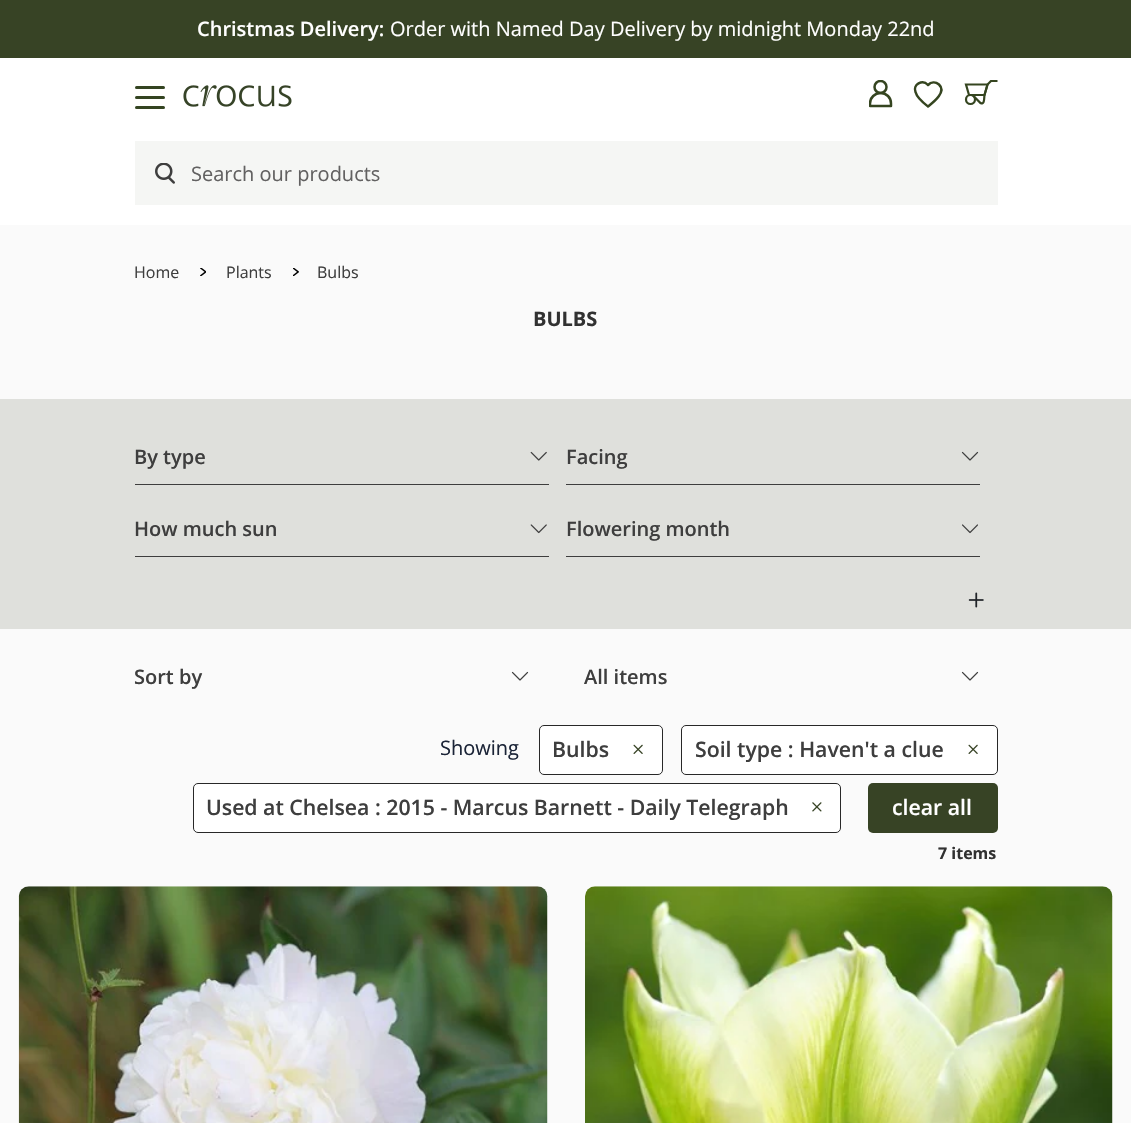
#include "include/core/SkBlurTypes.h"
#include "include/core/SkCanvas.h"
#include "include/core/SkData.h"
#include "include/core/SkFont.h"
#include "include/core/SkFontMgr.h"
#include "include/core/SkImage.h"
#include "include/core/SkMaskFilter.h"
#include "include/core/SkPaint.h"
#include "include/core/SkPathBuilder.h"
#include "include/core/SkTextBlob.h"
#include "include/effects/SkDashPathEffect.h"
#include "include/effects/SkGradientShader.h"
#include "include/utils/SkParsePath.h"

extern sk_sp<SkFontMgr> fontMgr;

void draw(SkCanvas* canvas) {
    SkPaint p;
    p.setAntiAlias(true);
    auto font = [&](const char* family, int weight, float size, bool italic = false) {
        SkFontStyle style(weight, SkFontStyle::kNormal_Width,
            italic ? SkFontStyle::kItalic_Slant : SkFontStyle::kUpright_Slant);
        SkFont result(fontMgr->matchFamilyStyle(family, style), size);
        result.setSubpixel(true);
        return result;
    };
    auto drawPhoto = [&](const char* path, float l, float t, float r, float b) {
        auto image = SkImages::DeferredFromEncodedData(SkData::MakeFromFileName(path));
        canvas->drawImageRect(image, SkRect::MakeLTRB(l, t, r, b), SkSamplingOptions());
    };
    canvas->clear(0xFFFAFAFA);
    p.setColor(0xFFFFFFFF);
    canvas->drawRect(SkRect::MakeLTRB(0, 58, 1131, 225), p);
    p.setColor(0xFF374325);
    canvas->drawRect(SkRect::MakeLTRB(0, 0, 1131, 58), p);
    auto font1 = font("Open Sans", 600, 20);
    p.setColor(0xFFFFFFFF);
    canvas->drawString("Christmas Delivery:", 197, 36, font1, p);
    auto font2 = font("Open Sans", 400, 20);
    canvas->drawString("Order with Named Day Delivery by midnight Monday 22nd", 390, 36, font2, p);
    p.setColor(0xFF344421);
    canvas->drawRoundRect(SkRect::MakeLTRB(135, 86, 165, 89), 1.5f, 1.5f, p);
    canvas->drawRoundRect(SkRect::MakeLTRB(135, 96, 165, 99), 1.5f, 1.5f, p);
    canvas->drawRoundRect(SkRect::MakeLTRB(135, 106, 165, 109), 1.5f, 1.5f, p);
    drawPhoto("media/1.png", 183, 85, 292, 107);
    canvas->save();
    canvas->clipRect(SkRect::MakeLTRB(869, 80, 893, 108));
    p.setStyle(SkPaint::kStroke_Style);
    p.setStrokeWidth(2.5f);
    p.setStrokeCap(SkPaint::kRound_Cap);
    p.setStrokeJoin(SkPaint::kRound_Join);
    p.setColor(0xFF354520);
    canvas->drawPath(SkPathBuilder().moveTo(880.5f, 93).cubicTo(886.5f, 93, 891, 97.5f, 891, 103.5f).lineTo(891, 106).lineTo(870, 106).lineTo(870, 103.5f).cubicTo(870, 97.5f, 875, 93, 880.5f, 93).close().detach(), p);
    p.setStrokeCap(SkPaint::kButt_Cap);
    p.setStrokeJoin(SkPaint::kMiter_Join);
    canvas->drawCircle(880.5f, 87, 6, p);
    canvas->restore();
    p.setStrokeCap(SkPaint::kRound_Cap);
    p.setStrokeJoin(SkPaint::kRound_Join);
    canvas->drawPath(SkPathBuilder().moveTo(939, 84.5f).cubicTo(935.5f, 81.5f, 931, 82, 928, 85).cubicTo(922.5f, 79, 912.5f, 84.5f, 915.5f, 92).cubicTo(917, 98, 923.5f, 103, 928, 106.5f).cubicTo(933, 102.5f, 947, 92, 939, 84.5f).close().detach(), p);
    p.setStrokeWidth(2.2f);
    p.setStrokeCap(SkPaint::kButt_Cap);
    p.setStrokeJoin(SkPaint::kMiter_Join);
    canvas->drawPath(SkPathBuilder().moveTo(984.5f, 95).lineTo(969, 95).lineTo(966, 84.5f).lineTo(987.5f, 84.5f).close().detach(), p);
    canvas->save();
    canvas->clipRect(SkRect::MakeLTRB(964, 80, 998, 105));
    canvas->drawPath(SkPathBuilder().moveTo(972.5f, 95).lineTo(980.5f, 103).cubicTo(985, 105.5f, 984, 96.5f, 984.5f, 95).lineTo(987.5f, 84.5f).lineTo(991, 81).lineTo(997.5f, 81).detach(), p);
    canvas->restore();
    canvas->drawCircle(970.5f, 99.5f, 4.5f, p);
    p.setStyle(SkPaint::kFill_Style);
    p.setColor(0xFFF5F6F4);
    canvas->drawRect(SkRect::MakeLTRB(135, 141, 998, 205), p);
    drawPhoto("media/2.png", 155, 163, 175, 184);
    p.setColor(0xFF626161);
    canvas->drawString("Search our products", 191, 181, font2, p);
    auto font3 = font("Open Sans", 400, 16);
    p.setColor(0xFF3E3E3E);
    canvas->drawString("Home", 134, 278, font3, p);
    drawPhoto("media/3.png", 200, 268, 206, 276);
    canvas->drawString("Plants", 226, 278, font3, p);
    drawPhoto("media/4.png", 293, 268, 299, 276);
    canvas->drawString("Bulbs", 317, 278, font3, p);
    auto font4 = font("Open Sans", 700, 20);
    p.setColor(0xFF313131);
    canvas->drawString("BULBS", 533, 326, font4, p);
    p.setColor(0xFFDFE0DC);
    canvas->drawRect(SkRect::MakeLTRB(0, 399, 1131, 629), p);
    p.setColor(0xFF3E3E3E);
    canvas->drawRect(SkRect::MakeLTRB(135, 484, 549, 485), p);
    canvas->drawString("By type", 134, 464, font1, p);
    drawPhoto("media/5.png", 530, 451, 547, 461);
    canvas->drawRect(SkRect::MakeLTRB(566, 484, 980, 485), p);
    canvas->drawString("Facing", 566, 464, font1, p);
    drawPhoto("media/6.png", 961, 451, 979, 461);
    canvas->drawRect(SkRect::MakeLTRB(135, 556, 549, 557), p);
    canvas->drawString("How much sun", 134, 536, font1, p);
    drawPhoto("media/7.png", 530, 524, 547, 534);
    canvas->drawRect(SkRect::MakeLTRB(566, 556, 980, 557), p);
    canvas->drawString("Flowering month", 566, 536, font1, p);
    drawPhoto("media/8.png", 962, 524, 978, 534);
    drawPhoto("media/9.png", 968, 592, 984, 608);
    canvas->drawString("Sort by", 134, 684, font1, p);
    drawPhoto("media/10.png", 511, 671, 529, 681);
    canvas->drawString("All items", 584, 684, font1, p);
    drawPhoto("media/10.png", 961, 671, 979, 681);
    p.setColor(0xFF1B2437);
    canvas->drawString("Showing", 440, 755, font2, p);
    p.setColor(0xFFFFFFFF);
    canvas->drawRoundRect(SkRect::MakeLTRB(539.5f, 725.5f, 662.5f, 774.5f), 4.5f, 4.5f, p);
    p.setStyle(SkPaint::kStroke_Style);
    p.setStrokeWidth(1);
    p.setColor(0xFF282828);
    canvas->drawRoundRect(SkRect::MakeLTRB(539.5f, 725.5f, 662.5f, 774.5f), 4.5f, 4.5f, p);
    auto font5 = font("Open Sans", 600, 21.25f);
    p.setStyle(SkPaint::kFill_Style);
    p.setColor(0xFF3E3E3E);
    canvas->drawString("Bulbs", 552, 757, font5, p);
    drawPhoto("media/11.png", 633, 744, 643, 754);
    p.setColor(0xFFFFFFFF);
    canvas->drawRoundRect(SkRect::MakeLTRB(681.5f, 725.5f, 997.5f, 774.5f), 4.5f, 4.5f, p);
    p.setStyle(SkPaint::kStroke_Style);
    p.setColor(0xFF282828);
    canvas->drawRoundRect(SkRect::MakeLTRB(681.5f, 725.5f, 997.5f, 774.5f), 4.5f, 4.5f, p);
    p.setStyle(SkPaint::kFill_Style);
    p.setColor(0xFF3E3E3E);
    canvas->drawString("Soil type : Haven't a clue", 695, 757, font5, p);
    drawPhoto("media/11.png", 968, 744, 978, 754);
    p.setColor(0xFFFFFFFF);
    canvas->drawRoundRect(SkRect::MakeLTRB(193.5f, 783.5f, 840.5f, 832.5f), 4.5f, 4.5f, p);
    p.setStyle(SkPaint::kStroke_Style);
    p.setColor(0xFF282828);
    canvas->drawRoundRect(SkRect::MakeLTRB(193.5f, 783.5f, 840.5f, 832.5f), 4.5f, 4.5f, p);
    p.setStyle(SkPaint::kFill_Style);
    p.setColor(0xFF3E3E3E);
    canvas->drawString("Used at Chelsea : 2015 - Marcus Barnett - Daily Telegraph", 206, 815, font5, p);
    drawPhoto("media/12.png", 812, 802, 822, 812);
    p.setColor(0xFF374325);
    canvas->drawRoundRect(SkRect::MakeLTRB(868, 783, 998, 833), 5, 5, p);
    p.setColor(0xFFFFFFFF);
    canvas->drawString("clear all", 892, 815, font5, p);
    auto font6 = font("Open Sans", 700, 16);
    p.setColor(0xFF313131);
    canvas->drawString("7 items", 938, 859, font6, p);
    p.setColor(0xFFFFFFFF);
    canvas->drawRoundRect(SkRect::MakeLTRB(19, 886, 548, 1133), 10, 10, p);
    drawPhoto("media/13.png", 18, 886, 548, 1123);
    canvas->drawRoundRect(SkRect::MakeLTRB(585, 886, 1113, 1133), 10, 10, p);
    drawPhoto("media/14.png", 585, 886, 1113, 1123);
}
